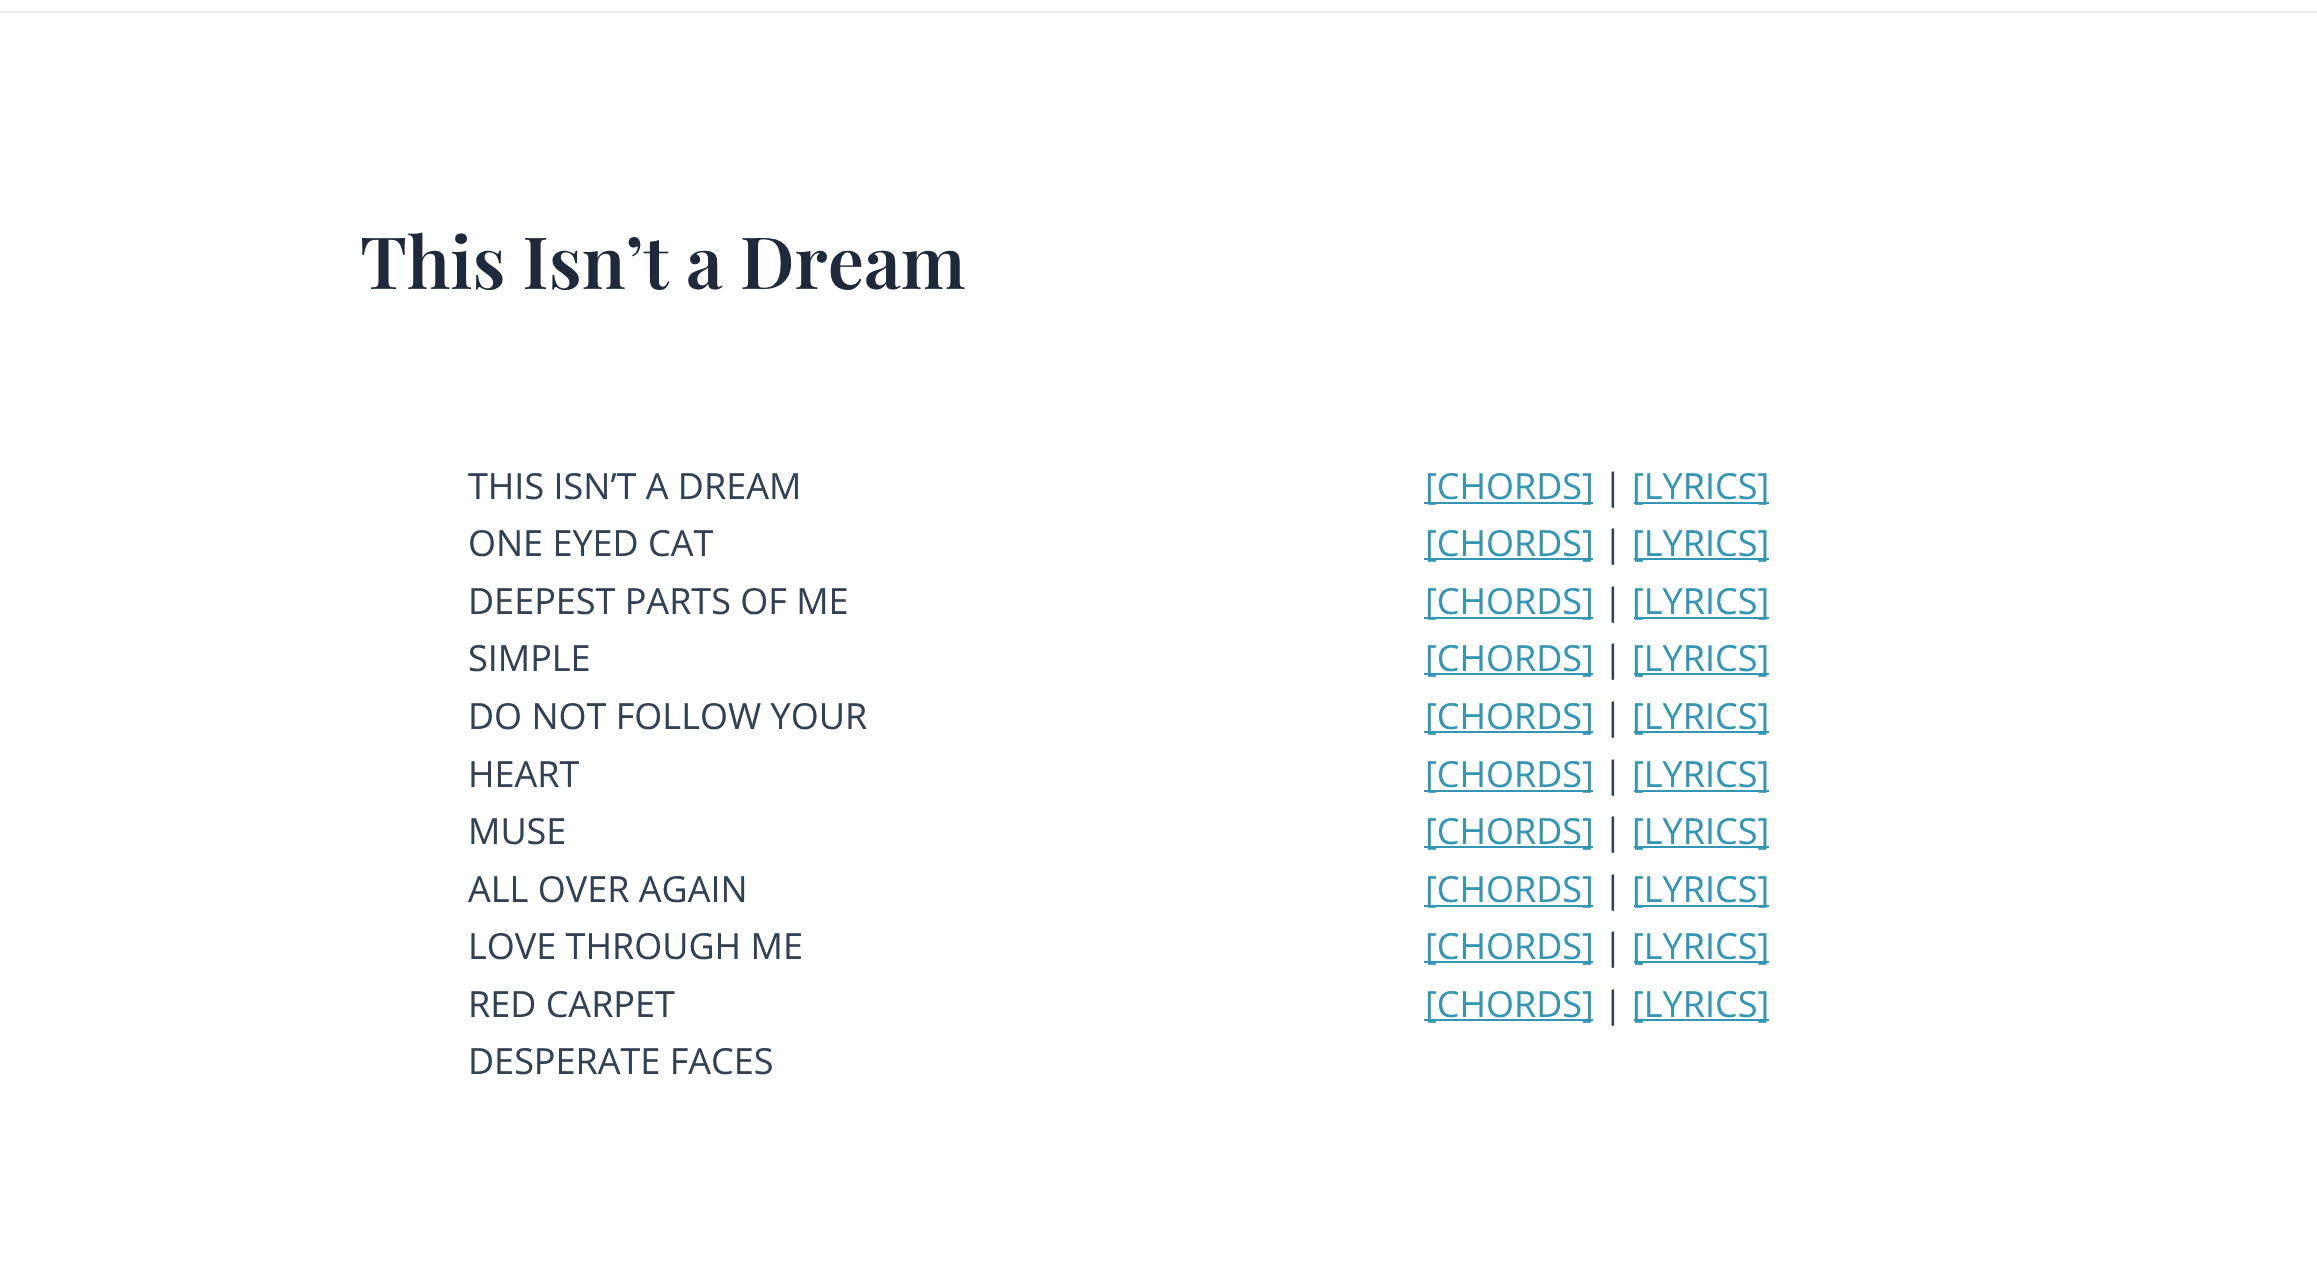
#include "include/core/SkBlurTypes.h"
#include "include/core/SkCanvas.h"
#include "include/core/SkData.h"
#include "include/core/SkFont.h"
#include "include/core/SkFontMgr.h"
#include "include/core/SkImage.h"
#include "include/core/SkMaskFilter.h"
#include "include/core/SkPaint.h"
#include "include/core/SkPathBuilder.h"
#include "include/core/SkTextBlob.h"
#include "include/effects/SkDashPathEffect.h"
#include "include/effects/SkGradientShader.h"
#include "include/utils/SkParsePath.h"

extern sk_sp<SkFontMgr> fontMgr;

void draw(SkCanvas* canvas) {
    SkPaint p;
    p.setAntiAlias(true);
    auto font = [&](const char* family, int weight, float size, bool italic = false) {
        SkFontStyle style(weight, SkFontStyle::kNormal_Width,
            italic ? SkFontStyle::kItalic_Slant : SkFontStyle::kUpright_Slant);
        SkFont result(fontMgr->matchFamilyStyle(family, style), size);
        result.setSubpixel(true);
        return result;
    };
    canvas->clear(0xFFFFFFFF);
    p.setColor(0xFFEAEAEA);
    canvas->drawRect(SkRect::MakeLTRB(0, 11, 2317, 13), p);
    auto font1 = font("Playfair Display", 600, 72);
    p.setColor(0xFF1E293B);
    canvas->drawString("This Isn’t a Dream", 360, 289, font1, p);
    auto font2 = font("Open Sans", 400, 36);
    p.setColor(0xFF334155);
    {
        const struct { const char* s; float x, y; } items[] = {
            {"THIS ISN’T A DREAM", 468, 499},
            {"ONE EYED CAT", 468, 556},
            {"DEEPEST PARTS OF ME", 468, 614},
            {"SIMPLE", 468, 671},
            {"DO NOT FOLLOW YOUR", 468, 729},
            {"HEART", 468, 787},
            {"MUSE", 468, 844},
            {"ALL OVER AGAIN", 468, 902},
            {"LOVE THROUGH ME", 468, 959},
            {"RED CARPET", 468, 1017},
            {"DESPERATE FACES", 468, 1074},
        };
        for (auto [s, x, y] : items) {
            canvas->drawString(s, x, y, font2, p);
        }
    }
    p.setColor(0xFF3496B4);
    canvas->drawRect(SkRect::MakeLTRB(1424, 502, 1593, 504), p);
    canvas->drawString("[CHORDS]", 1425, 499, font2, p);
    p.setColor(0xFF334155);
    canvas->drawString("|", 1603, 499, font2, p);
    p.setColor(0xFF3496B4);
    canvas->drawRect(SkRect::MakeLTRB(1634, 502, 1769, 504), p);
    canvas->drawString("[LYRICS]", 1632, 499, font2, p);
    canvas->drawRect(SkRect::MakeLTRB(1424, 558, 1593, 560), p);
    canvas->drawString("[CHORDS]", 1425, 556, font2, p);
    p.setColor(0xFF334155);
    canvas->drawString("|", 1603, 556, font2, p);
    p.setColor(0xFF3496B4);
    canvas->drawRect(SkRect::MakeLTRB(1634, 558, 1769, 560), p);
    canvas->drawString("[LYRICS]", 1632, 556, font2, p);
    canvas->drawRect(SkRect::MakeLTRB(1424, 617, 1593, 619), p);
    canvas->drawString("[CHORDS]", 1425, 614, font2, p);
    p.setColor(0xFF334155);
    canvas->drawString("|", 1603, 614, font2, p);
    p.setColor(0xFF3496B4);
    canvas->drawRect(SkRect::MakeLTRB(1634, 617, 1769, 619), p);
    canvas->drawString("[LYRICS]", 1632, 614, font2, p);
    canvas->drawRect(SkRect::MakeLTRB(1424, 673, 1593, 675), p);
    canvas->drawString("[CHORDS]", 1425, 671, font2, p);
    p.setColor(0xFF334155);
    canvas->drawString("|", 1603, 671, font2, p);
    p.setColor(0xFF3496B4);
    canvas->drawRect(SkRect::MakeLTRB(1634, 673, 1769, 675), p);
    canvas->drawString("[LYRICS]", 1632, 671, font2, p);
    canvas->drawRect(SkRect::MakeLTRB(1424, 731, 1593, 733), p);
    canvas->drawString("[CHORDS]", 1425, 729, font2, p);
    p.setColor(0xFF334155);
    canvas->drawString("|", 1603, 729, font2, p);
    p.setColor(0xFF3496B4);
    canvas->drawRect(SkRect::MakeLTRB(1634, 731, 1769, 733), p);
    canvas->drawString("[LYRICS]", 1632, 729, font2, p);
    canvas->drawRect(SkRect::MakeLTRB(1424, 790, 1593, 792), p);
    canvas->drawString("[CHORDS]", 1425, 787, font2, p);
    p.setColor(0xFF334155);
    canvas->drawString("|", 1603, 787, font2, p);
    p.setColor(0xFF3496B4);
    canvas->drawRect(SkRect::MakeLTRB(1634, 790, 1769, 792), p);
    canvas->drawString("[LYRICS]", 1632, 787, font2, p);
    canvas->drawRect(SkRect::MakeLTRB(1424, 846, 1593, 848), p);
    canvas->drawString("[CHORDS]", 1425, 844, font2, p);
    p.setColor(0xFF334155);
    canvas->drawString("|", 1603, 844, font2, p);
    p.setColor(0xFF3496B4);
    canvas->drawRect(SkRect::MakeLTRB(1634, 846, 1769, 848), p);
    canvas->drawString("[LYRICS]", 1632, 844, font2, p);
    canvas->drawRect(SkRect::MakeLTRB(1424, 905, 1593, 907), p);
    canvas->drawString("[CHORDS]", 1425, 902, font2, p);
    p.setColor(0xFF334155);
    canvas->drawString("|", 1603, 902, font2, p);
    p.setColor(0xFF3496B4);
    canvas->drawRect(SkRect::MakeLTRB(1634, 905, 1769, 907), p);
    canvas->drawString("[LYRICS]", 1632, 902, font2, p);
    canvas->drawRect(SkRect::MakeLTRB(1424, 961, 1593, 963), p);
    canvas->drawString("[CHORDS]", 1425, 959, font2, p);
    p.setColor(0xFF334155);
    canvas->drawString("|", 1603, 959, font2, p);
    p.setColor(0xFF3496B4);
    canvas->drawRect(SkRect::MakeLTRB(1634, 961, 1769, 963), p);
    canvas->drawString("[LYRICS]", 1632, 959, font2, p);
    canvas->drawRect(SkRect::MakeLTRB(1424, 1019, 1593, 1021), p);
    canvas->drawString("[CHORDS]", 1425, 1017, font2, p);
    p.setColor(0xFF334155);
    canvas->drawString("|", 1603, 1017, font2, p);
    p.setColor(0xFF3496B4);
    canvas->drawRect(SkRect::MakeLTRB(1634, 1019, 1769, 1021), p);
    canvas->drawString("[LYRICS]", 1632, 1017, font2, p);
}
